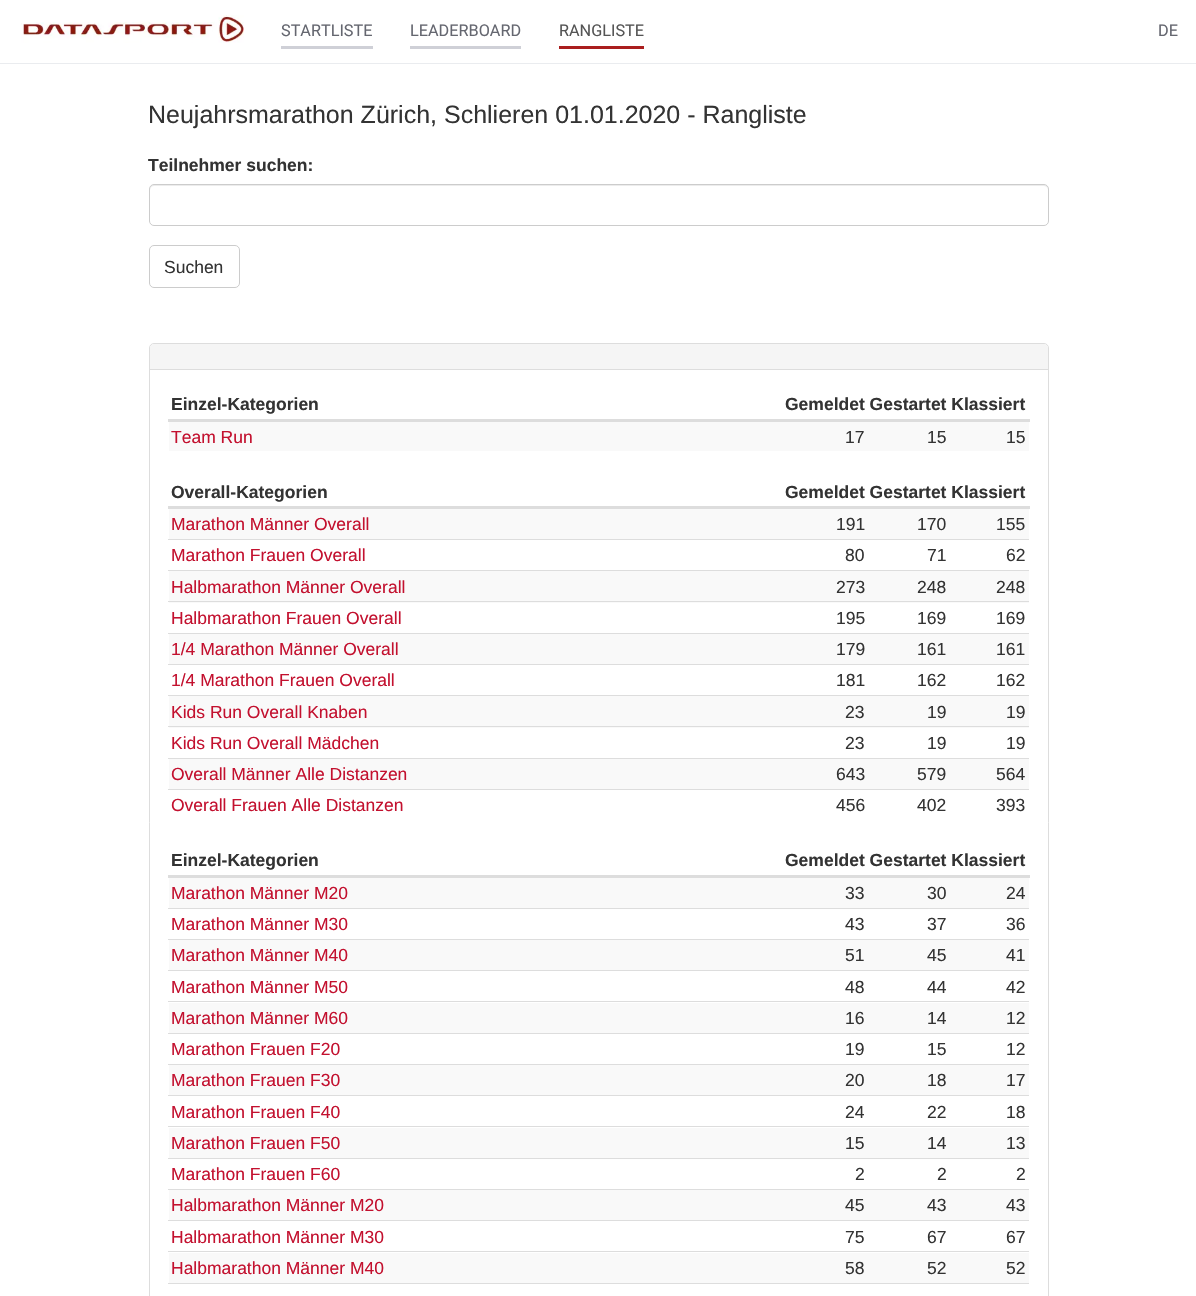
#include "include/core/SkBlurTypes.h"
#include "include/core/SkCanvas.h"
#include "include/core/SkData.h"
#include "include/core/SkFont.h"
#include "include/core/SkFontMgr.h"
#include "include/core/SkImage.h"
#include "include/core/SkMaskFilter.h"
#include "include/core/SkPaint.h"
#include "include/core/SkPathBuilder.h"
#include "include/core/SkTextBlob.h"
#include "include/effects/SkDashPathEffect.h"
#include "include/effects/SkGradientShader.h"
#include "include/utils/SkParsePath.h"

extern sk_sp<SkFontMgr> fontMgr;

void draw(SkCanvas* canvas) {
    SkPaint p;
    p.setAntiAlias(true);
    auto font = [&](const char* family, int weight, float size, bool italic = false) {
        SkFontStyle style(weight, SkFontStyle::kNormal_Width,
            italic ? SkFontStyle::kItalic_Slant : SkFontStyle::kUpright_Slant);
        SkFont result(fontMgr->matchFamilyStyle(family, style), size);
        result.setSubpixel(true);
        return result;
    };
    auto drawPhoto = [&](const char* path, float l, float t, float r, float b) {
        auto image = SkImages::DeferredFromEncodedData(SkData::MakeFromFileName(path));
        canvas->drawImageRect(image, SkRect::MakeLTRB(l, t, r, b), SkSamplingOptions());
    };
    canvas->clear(0xFFFFFFFF);
    p.setColor(0xFFEAECEF);
    canvas->drawRect(SkRect::MakeLTRB(0, 63, 1196, 64), p);
    drawPhoto("media/1.png", 21, 15, 244, 43);
    auto font1 = font("Roboto", 400, 16.25f);
    p.setColor(0xFF656770);
    canvas->drawString("STARTLISTE", 281, 36, font1, p);
    p.setColor(0xFFCFD0D7);
    canvas->drawRect(SkRect::MakeLTRB(281, 46, 373, 49), p);
    p.setColor(0xFF656770);
    canvas->drawString("LEADERBOARD", 410, 36, font1, p);
    p.setColor(0xFFCFD0D7);
    canvas->drawRect(SkRect::MakeLTRB(410, 46, 521, 49), p);
    p.setColor(0xFF555555);
    canvas->drawString("RANGLISTE", 559, 36, font1, p);
    p.setColor(0xFFAA1E1E);
    canvas->drawRect(SkRect::MakeLTRB(559, 46, 644, 49), p);
    p.setColor(0xFF656770);
    canvas->drawString("DE", 1158, 36, font1, p);
    auto font2 = font("Liberation Sans", 400, 25);
    p.setColor(0xFF333333);
    canvas->drawString("Neujahrsmarathon Zürich, Schlieren 01.01.2020 - Rangliste", 148, 123, font2, p);
    auto font3 = font("Liberation Sans", 700, 17.5f);
    canvas->drawString("Teilnehmer suchen:", 148, 171, font3, p);
    p.setColor(0xFFECECEC);
    canvas->drawPath(SkPathBuilder().moveTo(154, 186).lineTo(1044, 186).cubicTo(1046, 186, 1048, 188, 1048, 190).cubicTo(1048, 187, 1047, 185, 1044, 185).lineTo(154, 185).cubicTo(151, 185, 150, 187, 150, 190).cubicTo(150, 188, 152, 186, 154, 186).close().detach(), p);
    p.setStyle(SkPaint::kStroke_Style);
    p.setStrokeWidth(1);
    p.setColor(0xFFCCCCCC);
    canvas->drawRoundRect(SkRect::MakeLTRB(149.5f, 184.5f, 1048.5f, 225.5f), 4.5f, 4.5f, p);
    canvas->drawRoundRect(SkRect::MakeLTRB(149.5f, 245.5f, 239.5f, 287.5f), 4.5f, 4.5f, p);
    auto font4 = font("Liberation Sans", 400, 17.5f);
    p.setStyle(SkPaint::kFill_Style);
    p.setColor(0xFF333333);
    canvas->drawString("Suchen", 164, 273, font4, p);
    p.setStyle(SkPaint::kStroke_Style);
    p.setColor(0xFFDDDDDD);
    canvas->drawRoundRect(SkRect::MakeLTRB(149.5f, 343.5f, 1048.5f, 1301.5f), 4.5f, 4.5f, p);
    p.setStyle(SkPaint::kFill_Style);
    p.setColor(0xFFF5F5F5);
    canvas->drawPath(SkPathBuilder().moveTo(154, 344).lineTo(1044, 344).cubicTo(1046, 344, 1048, 346, 1048, 348).lineTo(1048, 369).lineTo(150, 369).lineTo(150, 348).cubicTo(150, 346, 152, 344, 154, 344).close().detach(), p);
    p.setColor(0xFFDDDDDD);
    canvas->drawRect(SkRect::MakeLTRB(150, 369, 1048, 370), p);
    p.setColor(0xFF333333);
    canvas->drawString("Einzel-Kategorien", 171, 410, font3, p);
    canvas->drawString("Gemeldet Gestartet Klassiert", 785, 410, font3, p);
    p.setColor(0xFFDDDDDD);
    canvas->drawRect(SkRect::MakeLTRB(168, 419, 1030, 422), p);
    p.setColor(0xFFF9F9F9);
    canvas->drawRect(SkRect::MakeLTRB(169, 422, 1029, 451), p);
    p.setColor(0xFFC3112F);
    canvas->drawString("Team Run", 171, 443, font4, p);
    p.setColor(0xFF333333);
    {
        const struct { const char* s; float x, y; } items[] = {
            {"17", 845, 443},
            {"15", 927, 443},
            {"15", 1006, 443},
        };
        for (auto [s, x, y] : items) {
            canvas->drawString(s, x, y, font4, p);
        }
    }
    canvas->drawString("Overall-Kategorien", 171, 498, font3, p);
    canvas->drawString("Gemeldet Gestartet Klassiert", 785, 498, font3, p);
    p.setColor(0xFFDDDDDD);
    canvas->drawRect(SkRect::MakeLTRB(168, 506, 1030, 509), p);
    p.setColor(0xFFF9F9F9);
    canvas->drawRect(SkRect::MakeLTRB(169, 509, 1029, 539), p);
    p.setColor(0xFFC3112F);
    canvas->drawString("Marathon Männer Overall", 171, 530, font4, p);
    p.setColor(0xFF333333);
    {
        const struct { const char* s; float x, y; } items[] = {
            {"191", 836, 530},
            {"170", 917, 530},
            {"155", 996, 530},
        };
        for (auto [s, x, y] : items) {
            canvas->drawString(s, x, y, font4, p);
        }
    }
    p.setColor(0xFFC3112F);
    canvas->drawString("Marathon Frauen Overall", 171, 561, font4, p);
    p.setColor(0xFF333333);
    canvas->drawString("80", 845, 561, font4, p);
    canvas->drawString("71", 927, 561, font4, p);
    p.setColor(0xFFDDDDDD);
    canvas->drawRect(SkRect::MakeLTRB(168, 539, 1029, 540), p);
    p.setColor(0xFF333333);
    canvas->drawString("62", 1006, 561, font4, p);
    p.setColor(0xFFF9F9F9);
    canvas->drawRect(SkRect::MakeLTRB(169, 571, 1029, 603), p);
    p.setColor(0xFFC3112F);
    canvas->drawString("Halbmarathon Männer Overall", 171, 593, font4, p);
    p.setColor(0xFF333333);
    canvas->drawString("273", 836, 593, font4, p);
    canvas->drawString("248", 917, 593, font4, p);
    p.setColor(0xFFDDDDDD);
    canvas->drawRect(SkRect::MakeLTRB(168, 570, 1029, 571), p);
    p.setColor(0xFF333333);
    canvas->drawString("248", 996, 593, font4, p);
    p.setColor(0xFFC3112F);
    canvas->drawString("Halbmarathon Frauen Overall", 171, 624, font4, p);
    p.setColor(0xFF333333);
    canvas->drawString("195", 836, 624, font4, p);
    canvas->drawString("169", 917, 624, font4, p);
    p.setColor(0xFFDDDDDD);
    canvas->drawRect(SkRect::MakeLTRB(168, 601, 1029, 602), p);
    p.setColor(0xFF333333);
    canvas->drawString("169", 996, 624, font4, p);
    p.setColor(0xFFF9F9F9);
    canvas->drawRect(SkRect::MakeLTRB(169, 634, 1029, 664), p);
    p.setColor(0xFFC3112F);
    canvas->drawString("1/4 Marathon Männer Overall", 171, 655, font4, p);
    p.setColor(0xFF333333);
    canvas->drawString("179", 836, 655, font4, p);
    canvas->drawString("161", 917, 655, font4, p);
    p.setColor(0xFFDDDDDD);
    canvas->drawRect(SkRect::MakeLTRB(168, 633, 1029, 634), p);
    p.setColor(0xFF333333);
    canvas->drawString("161", 996, 655, font4, p);
    p.setColor(0xFFC3112F);
    canvas->drawString("1/4 Marathon Frauen Overall", 171, 686, font4, p);
    p.setColor(0xFF333333);
    canvas->drawString("181", 836, 686, font4, p);
    canvas->drawString("162", 917, 686, font4, p);
    p.setColor(0xFFDDDDDD);
    canvas->drawRect(SkRect::MakeLTRB(168, 664, 1029, 665), p);
    p.setColor(0xFF333333);
    canvas->drawString("162", 996, 686, font4, p);
    p.setColor(0xFFF9F9F9);
    canvas->drawRect(SkRect::MakeLTRB(169, 696, 1029, 728), p);
    p.setColor(0xFFC3112F);
    canvas->drawString("Kids Run Overall Knaben", 171, 718, font4, p);
    p.setColor(0xFF333333);
    canvas->drawString("23", 845, 718, font4, p);
    canvas->drawString("19", 927, 718, font4, p);
    p.setColor(0xFFDDDDDD);
    canvas->drawRect(SkRect::MakeLTRB(168, 695, 1029, 696), p);
    p.setColor(0xFF333333);
    canvas->drawString("19", 1006, 718, font4, p);
    p.setColor(0xFFC3112F);
    canvas->drawString("Kids Run Overall Mädchen", 171, 749, font4, p);
    p.setColor(0xFF333333);
    canvas->drawString("23", 845, 749, font4, p);
    canvas->drawString("19", 927, 749, font4, p);
    p.setColor(0xFFDDDDDD);
    canvas->drawRect(SkRect::MakeLTRB(168, 726, 1029, 727), p);
    p.setColor(0xFF333333);
    canvas->drawString("19", 1006, 749, font4, p);
    p.setColor(0xFFF9F9F9);
    canvas->drawRect(SkRect::MakeLTRB(169, 759, 1029, 789), p);
    p.setColor(0xFFC3112F);
    canvas->drawString("Overall Männer Alle Distanzen", 171, 780, font4, p);
    p.setColor(0xFF333333);
    canvas->drawString("643", 836, 780, font4, p);
    canvas->drawString("579", 917, 780, font4, p);
    p.setColor(0xFFDDDDDD);
    canvas->drawRect(SkRect::MakeLTRB(168, 758, 1029, 759), p);
    p.setColor(0xFF333333);
    canvas->drawString("564", 996, 780, font4, p);
    p.setColor(0xFFC3112F);
    canvas->drawString("Overall Frauen Alle Distanzen", 171, 811, font4, p);
    p.setColor(0xFF333333);
    canvas->drawString("456", 836, 811, font4, p);
    canvas->drawString("402", 917, 811, font4, p);
    p.setColor(0xFFDDDDDD);
    canvas->drawRect(SkRect::MakeLTRB(168, 789, 1029, 790), p);
    p.setColor(0xFF333333);
    canvas->drawString("393", 996, 811, font4, p);
    canvas->drawString("Einzel-Kategorien", 171, 866, font3, p);
    canvas->drawString("Gemeldet Gestartet Klassiert", 785, 866, font3, p);
    p.setColor(0xFFDDDDDD);
    canvas->drawRect(SkRect::MakeLTRB(168, 875, 1030, 878), p);
    p.setColor(0xFFF9F9F9);
    canvas->drawRect(SkRect::MakeLTRB(169, 878, 1029, 908), p);
    p.setColor(0xFFC3112F);
    canvas->drawString("Marathon Männer M20", 171, 899, font4, p);
    p.setColor(0xFF333333);
    {
        const struct { const char* s; float x, y; } items[] = {
            {"33", 845, 899},
            {"30", 927, 899},
            {"24", 1006, 899},
        };
        for (auto [s, x, y] : items) {
            canvas->drawString(s, x, y, font4, p);
        }
    }
    p.setColor(0xFFC3112F);
    canvas->drawString("Marathon Männer M30", 171, 930, font4, p);
    p.setColor(0xFF333333);
    canvas->drawString("43", 845, 930, font4, p);
    canvas->drawString("37", 927, 930, font4, p);
    p.setColor(0xFFDDDDDD);
    canvas->drawRect(SkRect::MakeLTRB(168, 908, 1029, 909), p);
    p.setColor(0xFF333333);
    canvas->drawString("36", 1006, 930, font4, p);
    p.setColor(0xFFF9F9F9);
    canvas->drawRect(SkRect::MakeLTRB(169, 940, 1029, 970), p);
    p.setColor(0xFFC3112F);
    canvas->drawString("Marathon Männer M40", 171, 961, font4, p);
    p.setColor(0xFF333333);
    canvas->drawString("51", 845, 961, font4, p);
    canvas->drawString("45", 927, 961, font4, p);
    p.setColor(0xFFDDDDDD);
    canvas->drawRect(SkRect::MakeLTRB(168, 939, 1029, 940), p);
    p.setColor(0xFF333333);
    canvas->drawString("41", 1006, 961, font4, p);
    p.setColor(0xFFC3112F);
    canvas->drawString("Marathon Männer M50", 171, 993, font4, p);
    p.setColor(0xFF333333);
    canvas->drawString("48", 845, 993, font4, p);
    canvas->drawString("44", 927, 993, font4, p);
    p.setColor(0xFFDDDDDD);
    canvas->drawRect(SkRect::MakeLTRB(168, 970, 1029, 971), p);
    p.setColor(0xFF333333);
    canvas->drawString("42", 1006, 993, font4, p);
    p.setColor(0xFFF9F9F9);
    canvas->drawRect(SkRect::MakeLTRB(169, 1003, 1029, 1033), p);
    p.setColor(0xFFC3112F);
    canvas->drawString("Marathon Männer M60", 171, 1024, font4, p);
    p.setColor(0xFF333333);
    canvas->drawString("16", 845, 1024, font4, p);
    canvas->drawString("14", 927, 1024, font4, p);
    p.setColor(0xFFDDDDDD);
    canvas->drawRect(SkRect::MakeLTRB(168, 1001, 1029, 1002), p);
    p.setColor(0xFF333333);
    canvas->drawString("12", 1006, 1024, font4, p);
    p.setColor(0xFFC3112F);
    canvas->drawString("Marathon Frauen F20", 171, 1055, font4, p);
    p.setColor(0xFF333333);
    canvas->drawString("19", 845, 1055, font4, p);
    canvas->drawString("15", 927, 1055, font4, p);
    p.setColor(0xFFDDDDDD);
    canvas->drawRect(SkRect::MakeLTRB(168, 1033, 1029, 1034), p);
    p.setColor(0xFF333333);
    canvas->drawString("12", 1006, 1055, font4, p);
    p.setColor(0xFFF9F9F9);
    canvas->drawRect(SkRect::MakeLTRB(169, 1065, 1029, 1095), p);
    p.setColor(0xFFC3112F);
    canvas->drawString("Marathon Frauen F30", 171, 1086, font4, p);
    p.setColor(0xFF333333);
    canvas->drawString("20", 845, 1086, font4, p);
    canvas->drawString("18", 927, 1086, font4, p);
    p.setColor(0xFFDDDDDD);
    canvas->drawRect(SkRect::MakeLTRB(168, 1064, 1029, 1065), p);
    p.setColor(0xFF333333);
    canvas->drawString("17", 1006, 1086, font4, p);
    p.setColor(0xFFC3112F);
    canvas->drawString("Marathon Frauen F40", 171, 1118, font4, p);
    p.setColor(0xFF333333);
    canvas->drawString("24", 845, 1118, font4, p);
    canvas->drawString("22", 927, 1118, font4, p);
    p.setColor(0xFFDDDDDD);
    canvas->drawRect(SkRect::MakeLTRB(168, 1095, 1029, 1096), p);
    p.setColor(0xFF333333);
    canvas->drawString("18", 1006, 1118, font4, p);
    p.setColor(0xFFF9F9F9);
    canvas->drawRect(SkRect::MakeLTRB(169, 1128, 1029, 1158), p);
    p.setColor(0xFFC3112F);
    canvas->drawString("Marathon Frauen F50", 171, 1149, font4, p);
    p.setColor(0xFF333333);
    canvas->drawString("15", 845, 1149, font4, p);
    canvas->drawString("14", 927, 1149, font4, p);
    p.setColor(0xFFDDDDDD);
    canvas->drawRect(SkRect::MakeLTRB(168, 1126, 1029, 1127), p);
    p.setColor(0xFF333333);
    canvas->drawString("13", 1006, 1149, font4, p);
    p.setColor(0xFFC3112F);
    canvas->drawString("Marathon Frauen F60", 171, 1180, font4, p);
    p.setColor(0xFF333333);
    canvas->drawString("2", 855, 1180, font4, p);
    canvas->drawString("2", 937, 1180, font4, p);
    p.setColor(0xFFDDDDDD);
    canvas->drawRect(SkRect::MakeLTRB(168, 1158, 1029, 1159), p);
    p.setColor(0xFF333333);
    canvas->drawString("2", 1016, 1180, font4, p);
    p.setColor(0xFFF9F9F9);
    canvas->drawRect(SkRect::MakeLTRB(169, 1190, 1029, 1220), p);
    p.setColor(0xFFC3112F);
    canvas->drawString("Halbmarathon Männer M20", 171, 1211, font4, p);
    p.setColor(0xFF333333);
    canvas->drawString("45", 845, 1211, font4, p);
    canvas->drawString("43", 927, 1211, font4, p);
    p.setColor(0xFFDDDDDD);
    canvas->drawRect(SkRect::MakeLTRB(168, 1189, 1029, 1190), p);
    p.setColor(0xFF333333);
    canvas->drawString("43", 1006, 1211, font4, p);
    p.setColor(0xFFC3112F);
    canvas->drawString("Halbmarathon Männer M30", 171, 1243, font4, p);
    p.setColor(0xFF333333);
    canvas->drawString("75", 845, 1243, font4, p);
    canvas->drawString("67", 927, 1243, font4, p);
    p.setColor(0xFFDDDDDD);
    canvas->drawRect(SkRect::MakeLTRB(168, 1220, 1029, 1221), p);
    p.setColor(0xFF333333);
    canvas->drawString("67", 1006, 1243, font4, p);
    p.setColor(0xFFF9F9F9);
    canvas->drawRect(SkRect::MakeLTRB(169, 1253, 1029, 1283), p);
    p.setColor(0xFFC3112F);
    canvas->drawString("Halbmarathon Männer M40", 171, 1274, font4, p);
    p.setColor(0xFF333333);
    canvas->drawString("58", 845, 1274, font4, p);
    canvas->drawString("52", 927, 1274, font4, p);
    p.setColor(0xFFDDDDDD);
    canvas->drawRect(SkRect::MakeLTRB(168, 1251, 1029, 1252), p);
    p.setColor(0xFF333333);
    canvas->drawString("52", 1006, 1274, font4, p);
    p.setColor(0xFFDDDDDD);
    canvas->drawRect(SkRect::MakeLTRB(168, 1283, 1029, 1284), p);
}
